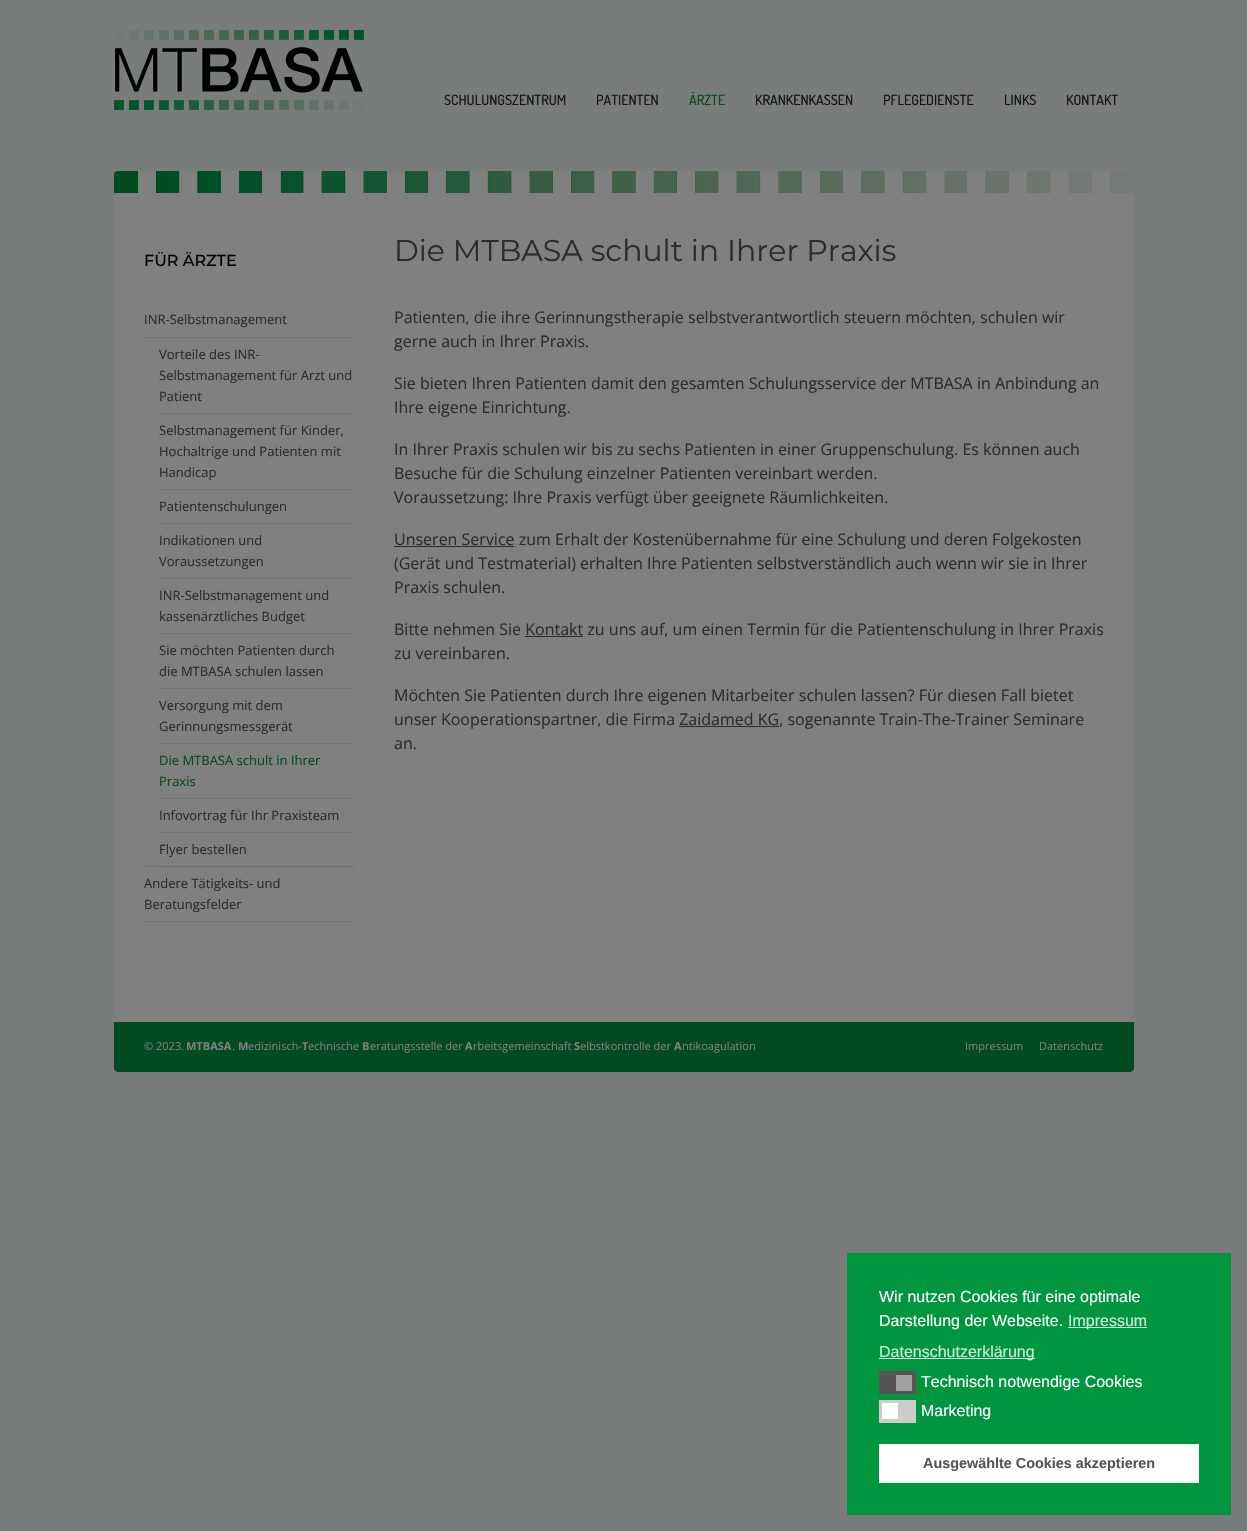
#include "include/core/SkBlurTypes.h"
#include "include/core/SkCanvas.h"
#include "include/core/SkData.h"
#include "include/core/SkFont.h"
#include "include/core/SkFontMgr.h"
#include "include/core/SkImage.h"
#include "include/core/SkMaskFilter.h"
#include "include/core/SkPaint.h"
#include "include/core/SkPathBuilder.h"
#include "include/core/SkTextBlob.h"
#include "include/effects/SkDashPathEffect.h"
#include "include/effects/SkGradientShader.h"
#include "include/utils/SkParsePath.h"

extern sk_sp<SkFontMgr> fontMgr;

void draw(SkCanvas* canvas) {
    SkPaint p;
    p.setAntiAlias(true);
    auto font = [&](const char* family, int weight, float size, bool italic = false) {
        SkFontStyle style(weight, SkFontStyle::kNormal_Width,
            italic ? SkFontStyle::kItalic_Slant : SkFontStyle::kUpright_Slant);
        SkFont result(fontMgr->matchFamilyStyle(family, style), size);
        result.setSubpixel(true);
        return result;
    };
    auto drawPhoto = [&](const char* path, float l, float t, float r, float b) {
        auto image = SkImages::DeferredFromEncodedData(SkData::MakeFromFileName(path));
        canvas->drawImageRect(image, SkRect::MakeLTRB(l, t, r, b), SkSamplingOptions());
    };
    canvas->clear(0xFF787C7A);
    drawPhoto("media/1.png", 114, 30, 364, 110);
    auto font1 = font("Dosis", 500, 14);
    p.setColor(0xFF141414);
    canvas->drawString("SCHULUNGSZENTRUM", 444, 105, font1, p);
    canvas->drawString("PATIENTEN", 596, 105, font1, p);
    p.setColor(0xFF004B20);
    canvas->drawString("ÄRZTE", 689, 105, font1, p);
    p.setColor(0xFF141414);
    {
        const struct { const char* s; float x, y; } items[] = {
            {"KRANKENKASSEN", 755, 105},
            {"PFLEGEDIENSTE", 883, 105},
            {"LINKS", 1004, 105},
            {"KONTAKT", 1066, 105},
        };
        for (auto [s, x, y] : items) {
            canvas->drawString(s, x, y, font1, p);
        }
    }
    p.setColor(0xFF808080);
    canvas->drawPath(SkPathBuilder().moveTo(118, 171).lineTo(1130, 171).cubicTo(1132, 171, 1134, 173, 1134, 175).lineTo(1134, 1022).lineTo(114, 1022).lineTo(114, 175).cubicTo(114, 173, 116, 171, 118, 171).close().detach(), p);
    drawPhoto("media/2.png", 114, 171, 1134, 193);
    auto font2 = font("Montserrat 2", 100, 16);
    p.setColor(0xFF000000);
    canvas->drawString("FÜR ÄRZTE", 144, 266, font2, p);
    p.setStyle(SkPaint::kStroke_Style);
    p.setStrokeWidth(1);
    p.setColor(0xFF6C6C6C);
    p.setPathEffect(SkDashPathEffect::Make({{1, 1}}, 0));
    canvas->drawPath(SkPathBuilder().moveTo(144, 866.5f).lineTo(354, 866.5f).detach(), p);
    p.setPathEffect(nullptr);
    auto font3 = font("Open Sans", 400, 13);
    p.setStyle(SkPaint::kFill_Style);
    p.setColor(0xFF2B2B2B);
    canvas->drawString("INR-Selbstmanagement", 144, 324, font3, p);
    p.setStyle(SkPaint::kStroke_Style);
    p.setColor(0xFF6C6C6C);
    p.setPathEffect(SkDashPathEffect::Make({{1, 1}}, 0));
    canvas->drawPath(SkPathBuilder().moveTo(144, 337.5f).lineTo(354, 337.5f).detach(), p);
    p.setPathEffect(nullptr);
    p.setPathEffect(SkDashPathEffect::Make({{1, 1}}, 0));
    canvas->drawPath(SkPathBuilder().moveTo(159, 413.5f).lineTo(354, 413.5f).detach(), p);
    p.setPathEffect(nullptr);
    p.setStyle(SkPaint::kFill_Style);
    p.setColor(0xFF2B2B2B);
    {
        const struct { const char* s; float x, y; } items[] = {
            {"Vorteile des INR-", 159, 359},
            {"Selbstmanagement für Arzt und", 159, 380},
            {"Patient", 159, 401},
        };
        for (auto [s, x, y] : items) {
            canvas->drawString(s, x, y, font3, p);
        }
    }
    p.setStyle(SkPaint::kStroke_Style);
    p.setColor(0xFF6C6C6C);
    p.setPathEffect(SkDashPathEffect::Make({{1, 1}}, 0));
    canvas->drawPath(SkPathBuilder().moveTo(159, 489.5f).lineTo(354, 489.5f).detach(), p);
    p.setPathEffect(nullptr);
    p.setStyle(SkPaint::kFill_Style);
    p.setColor(0xFF2B2B2B);
    {
        const struct { const char* s; float x, y; } items[] = {
            {"Selbstmanagement für Kinder,", 159, 435},
            {"Hochaltrige und Patienten mit", 159, 456},
            {"Handicap", 159, 477},
        };
        for (auto [s, x, y] : items) {
            canvas->drawString(s, x, y, font3, p);
        }
    }
    p.setStyle(SkPaint::kStroke_Style);
    p.setColor(0xFF6C6C6C);
    p.setPathEffect(SkDashPathEffect::Make({{1, 1}}, 0));
    canvas->drawPath(SkPathBuilder().moveTo(159, 523.5f).lineTo(354, 523.5f).detach(), p);
    p.setPathEffect(nullptr);
    p.setStyle(SkPaint::kFill_Style);
    p.setColor(0xFF2B2B2B);
    canvas->drawString("Patientenschulungen", 159, 511, font3, p);
    p.setStyle(SkPaint::kStroke_Style);
    p.setColor(0xFF6C6C6C);
    p.setPathEffect(SkDashPathEffect::Make({{1, 1}}, 0));
    canvas->drawPath(SkPathBuilder().moveTo(159, 578.5f).lineTo(354, 578.5f).detach(), p);
    p.setPathEffect(nullptr);
    p.setStyle(SkPaint::kFill_Style);
    p.setColor(0xFF2B2B2B);
    canvas->drawString("Indikationen und", 159, 545, font3, p);
    canvas->drawString("Voraussetzungen", 159, 566, font3, p);
    p.setStyle(SkPaint::kStroke_Style);
    p.setColor(0xFF6C6C6C);
    p.setPathEffect(SkDashPathEffect::Make({{1, 1}}, 0));
    canvas->drawPath(SkPathBuilder().moveTo(159, 633.5f).lineTo(354, 633.5f).detach(), p);
    p.setPathEffect(nullptr);
    p.setStyle(SkPaint::kFill_Style);
    p.setColor(0xFF2B2B2B);
    canvas->drawString("INR-Selbstmanagement und", 159, 600, font3, p);
    canvas->drawString("kassenärztliches Budget", 159, 621, font3, p);
    p.setStyle(SkPaint::kStroke_Style);
    p.setColor(0xFF6C6C6C);
    p.setPathEffect(SkDashPathEffect::Make({{1, 1}}, 0));
    canvas->drawPath(SkPathBuilder().moveTo(159, 688.5f).lineTo(354, 688.5f).detach(), p);
    p.setPathEffect(nullptr);
    p.setStyle(SkPaint::kFill_Style);
    p.setColor(0xFF2B2B2B);
    canvas->drawString("Sie möchten Patienten durch", 159, 655, font3, p);
    canvas->drawString("die MTBASA schulen lassen", 159, 676, font3, p);
    p.setStyle(SkPaint::kStroke_Style);
    p.setColor(0xFF6C6C6C);
    p.setPathEffect(SkDashPathEffect::Make({{1, 1}}, 0));
    canvas->drawPath(SkPathBuilder().moveTo(159, 743.5f).lineTo(354, 743.5f).detach(), p);
    p.setPathEffect(nullptr);
    p.setStyle(SkPaint::kFill_Style);
    p.setColor(0xFF2B2B2B);
    canvas->drawString("Versorgung mit dem", 159, 710, font3, p);
    canvas->drawString("Gerinnungsmessgerät", 159, 731, font3, p);
    p.setStyle(SkPaint::kStroke_Style);
    p.setColor(0xFF6C6C6C);
    p.setPathEffect(SkDashPathEffect::Make({{1, 1}}, 0));
    canvas->drawPath(SkPathBuilder().moveTo(159, 798.5f).lineTo(354, 798.5f).detach(), p);
    p.setPathEffect(nullptr);
    p.setStyle(SkPaint::kFill_Style);
    p.setColor(0xFF004B20);
    canvas->drawString("Die MTBASA schult in Ihrer", 159, 765, font3, p);
    canvas->drawString("Praxis", 159, 786, font3, p);
    p.setStyle(SkPaint::kStroke_Style);
    p.setColor(0xFF6C6C6C);
    p.setPathEffect(SkDashPathEffect::Make({{1, 1}}, 0));
    canvas->drawPath(SkPathBuilder().moveTo(159, 832.5f).lineTo(354, 832.5f).detach(), p);
    p.setPathEffect(nullptr);
    p.setStyle(SkPaint::kFill_Style);
    p.setColor(0xFF2B2B2B);
    canvas->drawString("Infovortrag für Ihr Praxisteam", 159, 820, font3, p);
    p.setStyle(SkPaint::kStroke_Style);
    p.setColor(0xFF6C6C6C);
    p.setPathEffect(SkDashPathEffect::Make({{1, 1}}, 0));
    canvas->drawPath(SkPathBuilder().moveTo(159, 866.5f).lineTo(354, 866.5f).detach(), p);
    p.setPathEffect(nullptr);
    p.setStyle(SkPaint::kFill_Style);
    p.setColor(0xFF2B2B2B);
    canvas->drawString("Flyer bestellen", 159, 854, font3, p);
    p.setStyle(SkPaint::kStroke_Style);
    p.setColor(0xFF6C6C6C);
    p.setPathEffect(SkDashPathEffect::Make({{1, 1}}, 0));
    canvas->drawPath(SkPathBuilder().moveTo(144, 921.5f).lineTo(354, 921.5f).detach(), p);
    p.setPathEffect(nullptr);
    p.setStyle(SkPaint::kFill_Style);
    p.setColor(0xFF2B2B2B);
    canvas->drawString("Andere Tätigkeits- und", 144, 888, font3, p);
    canvas->drawString("Beratungsfelder", 144, 909, font3, p);
    auto font4 = font("Montserrat", 100, 30);
    canvas->drawString("Die MTBASA schult in Ihrer Praxis", 394, 261, font4, p);
    auto font5 = font("Open Sans", 400, 16);
    {
        const struct { const char* s; float x, y; } items[] = {
            {"Patienten, die ihre Gerinnungstherapie selbstverantwortlich steuern möchten, schulen wir", 394, 323},
            {"gerne auch in Ihrer Praxis.", 394, 347},
            {"Sie bieten Ihren Patienten damit den gesamten Schulungsservice der MTBASA in Anbindung an", 394, 389},
            {"Ihre eigene Einrichtung.", 394, 413},
            {"In Ihrer Praxis schulen wir bis zu sechs Patienten in einer Gruppenschulung. Es können auch", 394, 455},
            {"Besuche für die Schulung einzelner Patienten vereinbart werden.", 394, 479},
            {"Voraussetzung: Ihre Praxis verfügt über geeignete Räumlichkeiten.", 394, 503},
        };
        for (auto [s, x, y] : items) {
            canvas->drawString(s, x, y, font5, p);
        }
    }
    canvas->drawRect(SkRect::MakeLTRB(394, 546, 514, 547), p);
    {
        const struct { const char* s; float x, y; } items[] = {
            {"Unseren Service zum Erhalt der Kostenübernahme für eine Schulung und deren Folgekosten", 394, 545},
            {"(Gerät und Testmaterial) erhalten Ihre Patienten selbstverständlich auch wenn wir sie in Ihrer", 394, 569},
            {"Praxis schulen.", 394, 593},
            {"Bitte nehmen Sie Kontakt zu uns auf, um einen Termin für die Patientenschulung in Ihrer Praxis", 394, 635},
        };
        for (auto [s, x, y] : items) {
            canvas->drawString(s, x, y, font5, p);
        }
    }
    canvas->drawRect(SkRect::MakeLTRB(525, 636, 583, 637), p);
    {
        const struct { const char* s; float x, y; } items[] = {
            {"zu vereinbaren.", 394, 659},
            {"Möchten Sie Patienten durch Ihre eigenen Mitarbeiter schulen lassen? Für diesen Fall bietet", 394, 701},
            {"unser Kooperationspartner, die Firma Zaidamed KG, sogenannte Train-The-Trainer Seminare", 394, 725},
        };
        for (auto [s, x, y] : items) {
            canvas->drawString(s, x, y, font5, p);
        }
    }
    canvas->drawRect(SkRect::MakeLTRB(679, 726, 779, 727), p);
    canvas->drawString("an.", 394, 749, font5, p);
    p.setColor(0xFF004B20);
    canvas->drawPath(SkPathBuilder().moveTo(114, 1022).lineTo(1134, 1022).lineTo(1134, 1068).cubicTo(1134, 1070, 1132, 1072, 1130, 1072).lineTo(118, 1072).cubicTo(116, 1072, 114, 1070, 114, 1068).close().detach(), p);
    auto font6 = font("Open Sans", 400, 11);
    p.setColor(0xFF808080);
    canvas->drawString("© 2023.", 144, 1050, font6, p);
    auto font7 = font("Open Sans", 700, 11);
    canvas->drawString("MTBASA", 186, 1050, font7, p);
    canvas->drawString(".", 232, 1050, font6, p);
    canvas->drawString("M", 238, 1050, font7, p);
    canvas->drawString("edizinisch-", 248, 1050, font6, p);
    canvas->drawString("T", 302, 1050, font7, p);
    canvas->drawString("echnische", 308, 1050, font6, p);
    canvas->drawString("B", 362, 1050, font7, p);
    canvas->drawString("eratungsstelle der", 370, 1050, font6, p);
    canvas->drawString("A", 465, 1050, font7, p);
    canvas->drawString("rbeitsgemeinschaft", 473, 1050, font6, p);
    canvas->drawString("S", 574, 1050, font7, p);
    canvas->drawString("elbstkontrolle der", 580, 1050, font6, p);
    canvas->drawString("A", 674, 1050, font7, p);
    {
        const struct { const char* s; float x, y; } items[] = {
            {"ntikoagulation", 682, 1050},
            {"Impressum", 965, 1050},
            {"Datenschutz", 1039, 1050},
        };
        for (auto [s, x, y] : items) {
            canvas->drawString(s, x, y, font6, p);
        }
    }
    p.setColor(0xFF009640);
    canvas->drawRect(SkRect::MakeLTRB(847, 1253, 1231, 1515), p);
    auto font8 = font("Liberation Sans", 400, 16);
    p.setColor(0xFFFFFFFF);
    canvas->drawString("Wir nutzen Cookies für eine optimale", 879, 1302, font8, p);
    canvas->drawString("Darstellung der Webseite.", 879, 1326, font8, p);
    p.setColor(0xFFCCEAD9);
    canvas->drawRect(SkRect::MakeLTRB(1068, 1327, 1147, 1328), p);
    canvas->drawString("Impressum", 1068, 1326, font8, p);
    canvas->drawRect(SkRect::MakeLTRB(879, 1358, 1035, 1359), p);
    canvas->drawString("Datenschutzerklärung", 879, 1357, font8, p);
    p.setColor(0xFF555555);
    canvas->drawRect(SkRect::MakeLTRB(879, 1371, 916, 1394), p);
    p.setColor(0xFFA2A2A2);
    canvas->drawRect(SkRect::MakeLTRB(896, 1375, 912, 1391), p);
    p.setColor(0xFFFFFFFF);
    canvas->drawString("Technisch notwendige Cookies", 921, 1387, font8, p);
    p.setColor(0xFFCCCCCC);
    canvas->drawRect(SkRect::MakeLTRB(879, 1400, 916, 1423), p);
    p.setColor(0xFFFFFFFF);
    canvas->drawRect(SkRect::MakeLTRB(882, 1403, 898, 1419), p);
    canvas->drawString("Marketing", 921, 1416, font8, p);
    canvas->drawRect(SkRect::MakeLTRB(879, 1444, 1199, 1483), p);
    auto font9 = font("Liberation Sans", 700, 14.4f);
    p.setColor(0xFF555555);
    canvas->drawString("Ausgewählte Cookies akzeptieren", 923, 1468, font9, p);
}
